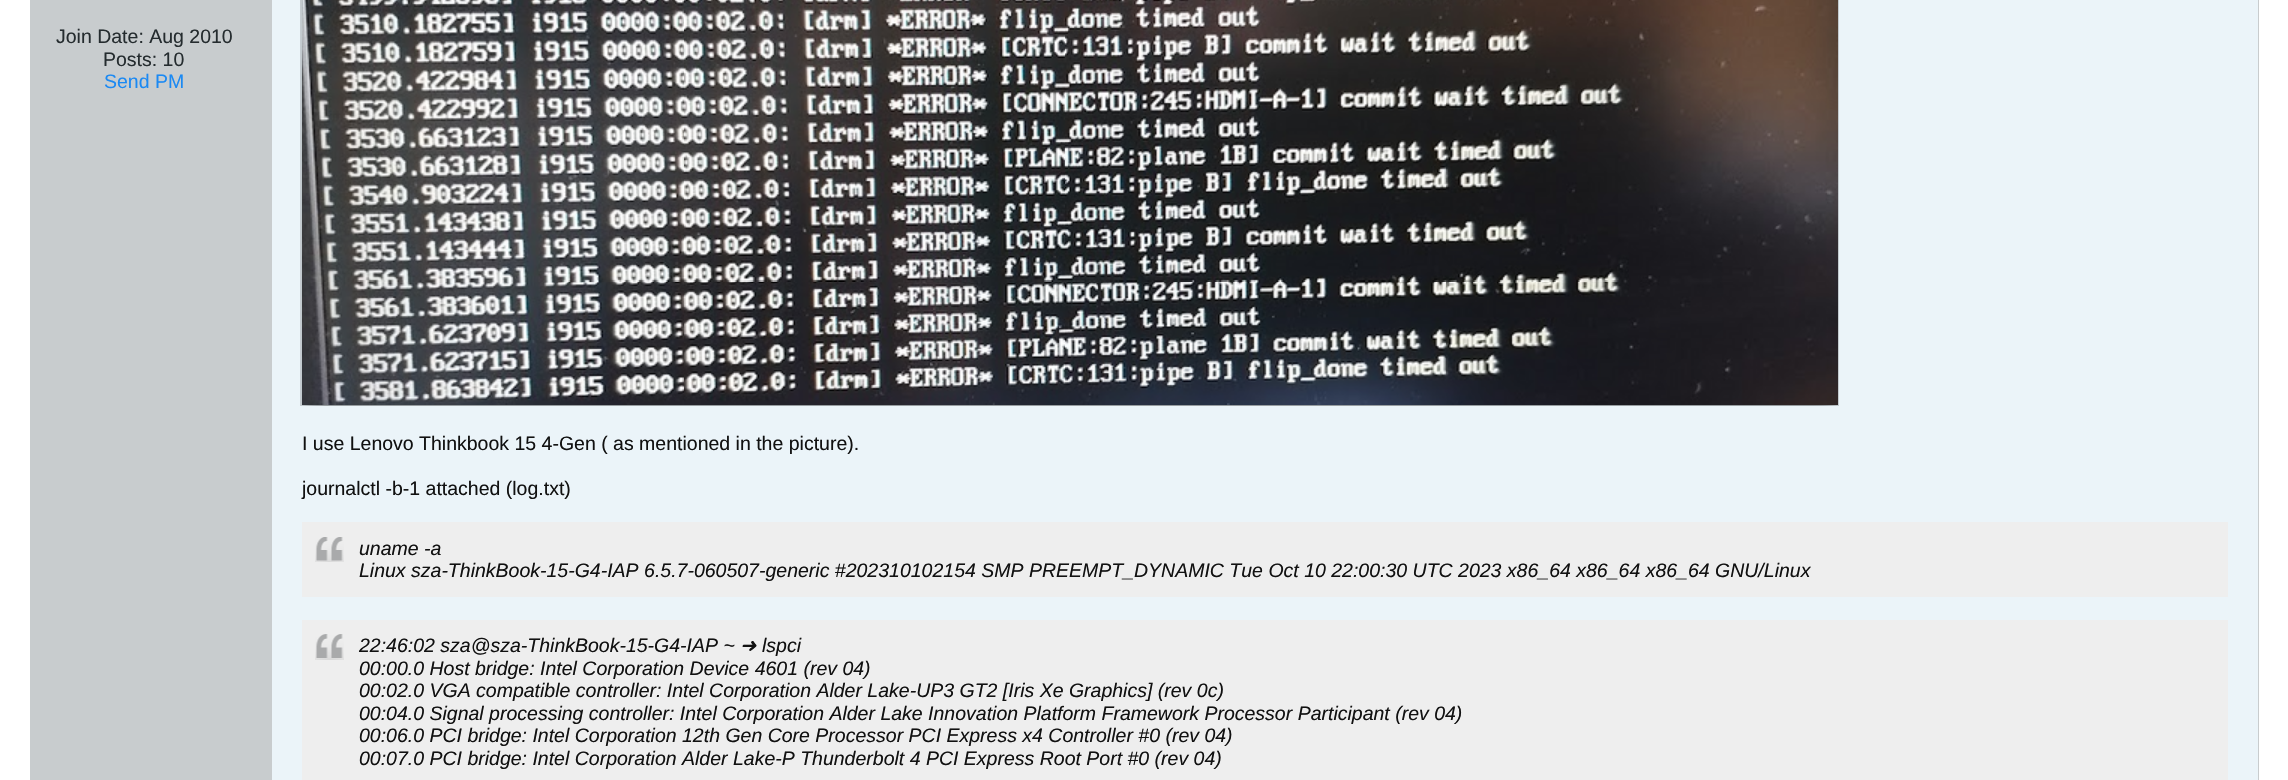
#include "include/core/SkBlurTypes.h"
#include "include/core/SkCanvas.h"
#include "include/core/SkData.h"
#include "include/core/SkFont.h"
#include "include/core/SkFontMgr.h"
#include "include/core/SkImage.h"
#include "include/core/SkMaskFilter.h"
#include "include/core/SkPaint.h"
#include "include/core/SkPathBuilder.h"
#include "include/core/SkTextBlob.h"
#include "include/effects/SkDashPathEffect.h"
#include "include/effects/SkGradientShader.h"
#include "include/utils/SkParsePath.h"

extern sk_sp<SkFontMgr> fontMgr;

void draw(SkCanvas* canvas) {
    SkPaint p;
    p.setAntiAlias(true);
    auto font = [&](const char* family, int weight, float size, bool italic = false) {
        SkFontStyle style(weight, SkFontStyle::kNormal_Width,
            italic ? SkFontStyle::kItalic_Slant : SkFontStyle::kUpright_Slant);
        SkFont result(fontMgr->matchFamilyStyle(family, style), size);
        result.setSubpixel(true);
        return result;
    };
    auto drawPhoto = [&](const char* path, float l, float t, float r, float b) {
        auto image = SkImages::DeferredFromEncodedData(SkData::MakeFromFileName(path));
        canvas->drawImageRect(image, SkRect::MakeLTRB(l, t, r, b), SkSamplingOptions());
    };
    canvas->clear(0xFFFFFFFF);
    p.setColor(0xFFC8CCCE);
    canvas->drawRect(SkRect::MakeLTRB(30, 0, 2259, 780), p);
    auto font1 = font("Liberation Sans", 400, 19.5f);
    p.setColor(0xFF252C2F);
    canvas->drawString("Join Date: Aug 2010", 56, 43, font1, p);
    canvas->drawString("Posts: 10", 103, 66, font1, p);
    p.setColor(0xFF1B89F3);
    canvas->drawString("Send PM", 104, 88, font1, p);
    p.setColor(0xFFEBF4F9);
    canvas->drawRect(SkRect::MakeLTRB(272, 0, 2258, 780), p);
    drawPhoto("media/1.png", 300, 0, 1839, 406);
    p.setColor(0xFF111111);
    canvas->drawString("I use Lenovo Thinkbook 15 4-Gen ( as mentioned in the picture).", 302, 450, font1, p);
    canvas->drawString("journalctl -b-1 attached (log.txt)", 302, 495, font1, p);
    p.setColor(0xFFEEEEEE);
    canvas->drawRect(SkRect::MakeLTRB(302, 522, 2228, 597), p);
    drawPhoto("media/2.png", 315, 537, 344, 562);
    auto font2 = font("Liberation Sans", 400, 19.5f, true);
    p.setColor(0xFF111111);
    canvas->drawString("uname -a", 359, 555, font2, p);
    canvas->drawString("Linux sza-ThinkBook-15-G4-IAP 6.5.7-060507-generic #202310102154 SMP PREEMPT_DYNAMIC Tue Oct 10 22:00:30 UTC 2023 x86_64 x86_64 x86_64 GNU/Linux", 359, 577, font2, p);
    p.setColor(0xFFEEEEEE);
    canvas->drawRect(SkRect::MakeLTRB(302, 620, 2228, 780), p);
    drawPhoto("media/3.png", 315, 634, 344, 660);
    p.setColor(0xFF111111);
    canvas->drawString("22:46:02 sza@sza-ThinkBook-15-G4-IAP ~", 359, 652, font2, p);
    auto font3 = font("DejaVu Sans", 400, 19.5f, true);
    canvas->drawString("➜", 740, 652, font3, p);
    {
        const struct { const char* s; float x, y; } items[] = {
            {"lspci", 762, 652},
            {"00:00.0 Host bridge: Intel Corporation Device 4601 (rev 04)", 359, 675},
            {"00:02.0 VGA compatible controller: Intel Corporation Alder Lake-UP3 GT2 [Iris Xe Graphics] (rev 0c)", 359, 697},
            {"00:04.0 Signal processing controller: Intel Corporation Alder Lake Innovation Platform Framework Processor Participant (rev 04)", 359, 720},
            {"00:06.0 PCI bridge: Intel Corporation 12th Gen Core Processor PCI Express x4 Controller #0 (rev 04)", 359, 742},
            {"00:07.0 PCI bridge: Intel Corporation Alder Lake-P Thunderbolt 4 PCI Express Root Port #0 (rev 04)", 359, 765},
        };
        for (auto [s, x, y] : items) {
            canvas->drawString(s, x, y, font2, p);
        }
    }
}
